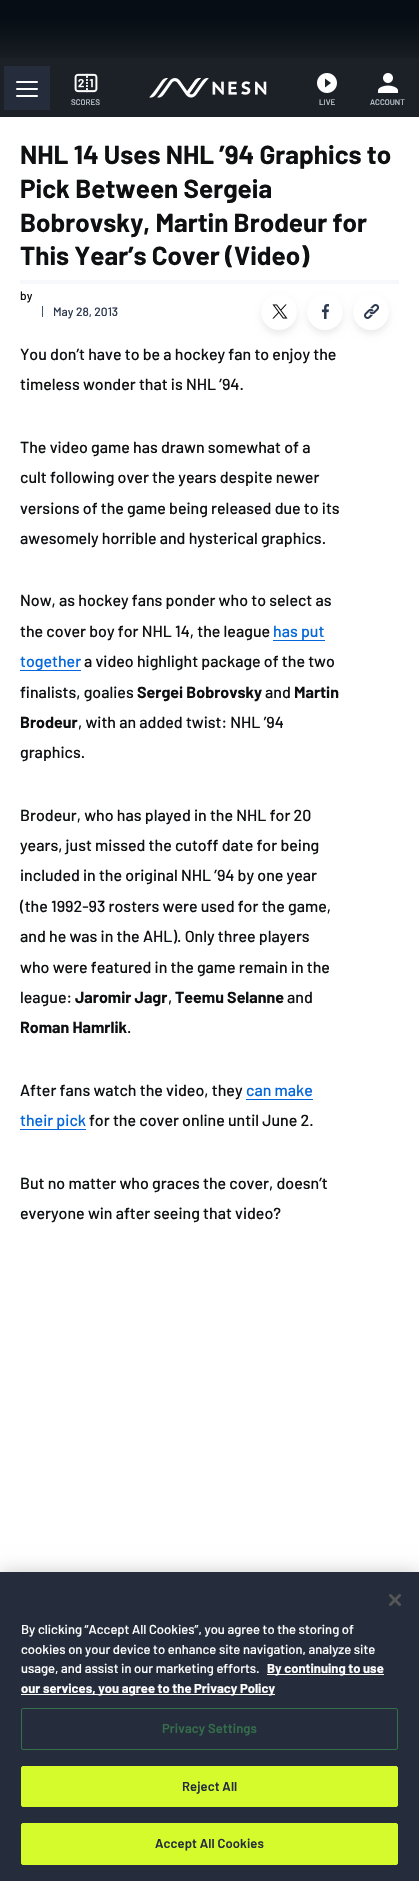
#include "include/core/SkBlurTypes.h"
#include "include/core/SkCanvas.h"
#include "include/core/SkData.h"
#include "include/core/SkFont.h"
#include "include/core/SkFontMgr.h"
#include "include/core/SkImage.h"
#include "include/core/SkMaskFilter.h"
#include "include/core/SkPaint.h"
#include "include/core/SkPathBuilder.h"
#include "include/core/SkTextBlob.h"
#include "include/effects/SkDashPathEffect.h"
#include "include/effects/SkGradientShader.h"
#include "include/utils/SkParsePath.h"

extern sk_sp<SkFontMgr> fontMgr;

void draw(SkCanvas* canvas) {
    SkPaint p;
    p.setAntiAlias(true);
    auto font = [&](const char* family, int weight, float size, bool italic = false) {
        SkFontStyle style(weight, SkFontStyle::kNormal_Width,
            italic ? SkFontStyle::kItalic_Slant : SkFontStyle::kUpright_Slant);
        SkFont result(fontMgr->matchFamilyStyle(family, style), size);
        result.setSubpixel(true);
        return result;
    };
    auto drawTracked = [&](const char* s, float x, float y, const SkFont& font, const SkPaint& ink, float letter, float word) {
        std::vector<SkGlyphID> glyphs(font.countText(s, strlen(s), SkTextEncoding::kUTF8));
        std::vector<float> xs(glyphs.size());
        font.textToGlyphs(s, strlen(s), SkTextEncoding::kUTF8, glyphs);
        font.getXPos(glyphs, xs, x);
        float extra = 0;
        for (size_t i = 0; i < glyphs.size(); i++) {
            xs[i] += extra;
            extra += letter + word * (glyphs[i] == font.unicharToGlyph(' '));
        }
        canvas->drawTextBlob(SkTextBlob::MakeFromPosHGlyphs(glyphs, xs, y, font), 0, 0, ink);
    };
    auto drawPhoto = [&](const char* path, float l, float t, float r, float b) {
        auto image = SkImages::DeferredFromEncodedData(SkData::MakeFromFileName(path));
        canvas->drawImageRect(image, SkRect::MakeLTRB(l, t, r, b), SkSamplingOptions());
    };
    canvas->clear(0xFFFFFFFF);
    {
        const SkColor colors[] = {0xFF060D14, 0xFF181D23};
        const float stops[] = {0.3f, 1};
        const SkPoint ends[] = {{210, 0}, {210, 58}};
        p.setShader(SkGradientShader::MakeLinear(ends, colors, stops, 2, SkTileMode::kClamp));
        p.setAlpha(255);
    }
    canvas->drawRect(SkRect::MakeLTRB(0, 0, 419, 58), p);
    p.setShader(nullptr);
    p.setColor(0xFF1C2027);
    canvas->drawRect(SkRect::MakeLTRB(0, 58, 419, 117), p);
    drawPhoto("media/1.png", 149, 78, 267, 98);
    p.setColor(0xFF252D3D);
    canvas->drawRect(SkRect::MakeLTRB(4, 66, 50, 110), p);
    p.setColor(0xFFFFFFFF);
    canvas->drawRoundRect(SkRect::MakeLTRB(16, 81, 38, 83), 1, 1, p);
    canvas->drawRoundRect(SkRect::MakeLTRB(16, 88, 38, 90), 1, 1, p);
    canvas->drawRoundRect(SkRect::MakeLTRB(16, 95, 38, 97), 1, 1, p);
    drawPhoto("media/2.png", 74, 73, 98, 93);
    auto font1 = font("Barlow", 500, 8);
    p.setColor(0xFFC1CBD4);
    canvas->drawString("SCORES", 71, 105, font1, p);
    drawPhoto("media/3.png", 317, 73, 337, 93);
    canvas->drawString("LIVE", 319, 105, font1, p);
    drawPhoto("media/4.png", 378, 73, 398, 93);
    canvas->drawString("ACCOUNT", 370, 105, font1, p);
    auto font2 = font("Barlow", 700, 26);
    p.setColor(0xFF0E1012);
    {
        const struct { const char* s; float x, y; } items[] = {
            {"NHL 14 Uses NHL ’94 Graphics to", 20, 164},
            {"Pick Between Sergeia", 20, 198},
            {"Bobrovsky, Martin Brodeur for", 20, 232},
            {"This Year’s Cover (Video)", 20, 265},
        };
        for (auto [s, x, y] : items) {
            canvas->drawString(s, x, y, font2, p);
        }
    }
    p.setColor(0xFFF6F8FB);
    canvas->drawRect(SkRect::MakeLTRB(20, 280, 399, 284), p);
    auto font3 = font("Barlow", 500, 12);
    p.setColor(0xFF0E1012);
    canvas->drawString("by", 20, 300, font3, p);
    p.setColor(0xFF3E566B);
    canvas->drawRect(SkRect::MakeLTRB(42, 306, 43, 317), p);
    p.setColor(0xFF2D3950);
    canvas->drawString("May 28, 2013", 53, 316, font3, p);
    p.setColor(0x14000000);
    p.setMaskFilter(SkMaskFilter::MakeBlur(kNormal_SkBlurStyle, 3));
    canvas->drawRoundRect(SkRect::MakeLTRB(261, 298, 297, 334), 18, 18, p);
    p.setMaskFilter(nullptr);
    p.setColor(0xFFFFFFFF);
    canvas->drawCircle(279, 312, 18, p);
    drawPhoto("media/5.png", 272, 304, 288, 319);
    p.setColor(0x14000000);
    p.setMaskFilter(SkMaskFilter::MakeBlur(kNormal_SkBlurStyle, 3));
    canvas->drawRoundRect(SkRect::MakeLTRB(307, 298, 343, 334), 18, 18, p);
    p.setMaskFilter(nullptr);
    p.setColor(0xFFFFFFFF);
    canvas->drawCircle(325, 312, 18, p);
    drawPhoto("media/6.png", 321, 304, 329, 319);
    p.setColor(0x14000000);
    p.setMaskFilter(SkMaskFilter::MakeBlur(kNormal_SkBlurStyle, 3));
    canvas->drawRoundRect(SkRect::MakeLTRB(353, 298, 389, 334), 18, 18, p);
    p.setMaskFilter(nullptr);
    p.setColor(0xFFFFFFFF);
    canvas->drawCircle(371, 312, 18, p);
    drawPhoto("media/7.png", 364, 304, 380, 319);
    auto font4 = font("Barlow", 500, 16);
    p.setColor(0xFF0E1012);
    {
        const struct { const char* s; float x, y; } items[] = {
            {"You don’t have to be a hockey fan to enjoy the", 20, 360},
            {"timeless wonder that is NHL ’94.", 20, 390},
            {"The video game has drawn somewhat of a", 20, 453},
            {"cult following over the years despite newer", 20, 483},
            {"versions of the game being released due to its", 20, 514},
            {"awesomely horrible and hysterical graphics.", 20, 544},
            {"Now, as hockey fans ponder who to select as", 20, 606},
            {"the cover boy for NHL 14, the league", 20, 637},
        };
        for (auto [s, x, y] : items) {
            canvas->drawString(s, x, y, font4, p);
        }
    }
    p.setColor(0xFF0367DB);
    canvas->drawRect(SkRect::MakeLTRB(273, 640, 325, 641), p);
    canvas->drawString("has put", 273, 637, font4, p);
    canvas->drawRect(SkRect::MakeLTRB(20, 670, 81, 671), p);
    canvas->drawString("together", 20, 667, font4, p);
    p.setColor(0xFF0E1012);
    canvas->drawString("a video highlight package of the two", 84, 667, font4, p);
    canvas->drawString("finalists, goalies", 20, 698, font4, p);
    auto font5 = font("Barlow", 700, 16);
    canvas->drawString("Sergei Bobrovsky", 137, 698, font5, p);
    canvas->drawString("and", 265, 698, font4, p);
    canvas->drawString("Martin", 294, 698, font5, p);
    canvas->drawString("Brodeur", 20, 728, font5, p);
    {
        const struct { const char* s; float x, y; } items[] = {
            {", with an added twist: NHL ’94", 78, 728},
            {"graphics.", 20, 758},
            {"Brodeur, who has played in the NHL for 20", 20, 821},
            {"years, just missed the cutoff date for being", 20, 851},
            {"included in the original NHL ’94 by one year", 20, 881},
            {"(the 1992-93 rosters were used for the game,", 20, 912},
            {"and he was in the AHL). Only three players", 20, 942},
            {"who were featured in the game remain in the", 20, 973},
            {"league:", 20, 1003},
        };
        for (auto [s, x, y] : items) {
            canvas->drawString(s, x, y, font4, p);
        }
    }
    canvas->drawString("Jaromir Jagr", 75, 1003, font5, p);
    canvas->drawString(",", 168, 1003, font4, p);
    canvas->drawString("Teemu Selanne", 175, 1003, font5, p);
    canvas->drawString("and", 287, 1003, font4, p);
    canvas->drawString("Roman Hamrlik", 20, 1033, font5, p);
    canvas->drawString(".", 127, 1033, font4, p);
    canvas->drawString("After fans watch the video, they", 20, 1096, font4, p);
    p.setColor(0xFF0367DB);
    canvas->drawString("can make", 246, 1096, font4, p);
    canvas->drawRect(SkRect::MakeLTRB(246, 1099, 313, 1100), p);
    canvas->drawRect(SkRect::MakeLTRB(20, 1129, 86, 1130), p);
    canvas->drawString("their pick", 20, 1126, font4, p);
    p.setColor(0xFF0E1012);
    {
        const struct { const char* s; float x, y; } items[] = {
            {"for the cover online until June 2.", 89, 1126},
            {"But no matter who graces the cover, doesn’t", 20, 1189},
            {"everyone win after seeing that video?", 20, 1219},
        };
        for (auto [s, x, y] : items) {
            canvas->drawString(s, x, y, font4, p);
        }
    }
    p.setColor(0x33000000);
    p.setMaskFilter(SkMaskFilter::MakeBlur(kNormal_SkBlurStyle, 9));
    canvas->drawRect(SkRect::MakeLTRB(0, 1572, 419, 1881), p);
    p.setMaskFilter(nullptr);
    p.setColor(0xFF252D3D);
    canvas->drawRect(SkRect::MakeLTRB(0, 1572, 419, 1881), p);
    drawPhoto("media/8.png", 389, 1594, 401, 1606);
    auto font6 = font("Barlow", 500, 13);
    p.setColor(0xFFFFFFFF);
    {
        const struct { const char* s; float x, y; } items[] = {
            {"By clicking “Accept All Cookies”, you agree to the storing of", 21, 1634},
            {"cookies on your device to enhance site navigation, analyze site", 21, 1654},
            {"usage, and assist in our marketing efforts.", 21, 1673},
        };
        for (auto [s, x, y] : items) {
            canvas->drawString(s, x, y, font6, p);
        }
    }
    canvas->drawRect(SkRect::MakeLTRB(267, 1674, 384, 1675), p);
    auto font7 = font("Barlow", 700, 13);
    canvas->drawString("By continuing to use", 267, 1673, font7, p);
    canvas->drawRect(SkRect::MakeLTRB(21, 1694, 275, 1695), p);
    canvas->drawString("our services, you agree to the Privacy Policy", 21, 1693, font7, p);
    p.setStyle(SkPaint::kStroke_Style);
    p.setStrokeWidth(1);
    p.setColor(0xFF346E4A);
    canvas->drawRoundRect(SkRect::MakeLTRB(21.5f, 1708.5f, 397.5f, 1749.5f), 1.5f, 1.5f, p);
    auto font8 = font("Barlow", 600, 13);
    p.setStyle(SkPaint::kFill_Style);
    drawTracked("Privacy Settings", 162, 1733, font8, p, 0.1f, 0);
    p.setColor(0xFFD5FB2D);
    canvas->drawRoundRect(SkRect::MakeLTRB(21.5f, 1766.5f, 397.5f, 1806.5f), 1.5f, 1.5f, p);
    p.setStyle(SkPaint::kStroke_Style);
    canvas->drawRoundRect(SkRect::MakeLTRB(21.5f, 1766.5f, 397.5f, 1806.5f), 1.5f, 1.5f, p);
    p.setStyle(SkPaint::kFill_Style);
    p.setColor(0xFF252D3D);
    drawTracked("Reject All", 182, 1791, font8, p, 0.1f, 0);
    p.setColor(0xFFD5FB2D);
    canvas->drawRoundRect(SkRect::MakeLTRB(21.5f, 1823.5f, 397.5f, 1864.5f), 1.5f, 1.5f, p);
    p.setStyle(SkPaint::kStroke_Style);
    canvas->drawRoundRect(SkRect::MakeLTRB(21.5f, 1823.5f, 397.5f, 1864.5f), 1.5f, 1.5f, p);
    p.setStyle(SkPaint::kFill_Style);
    p.setColor(0xFF252D3D);
    drawTracked("Accept All Cookies", 155, 1848, font8, p, 0.1f, 0);
}
